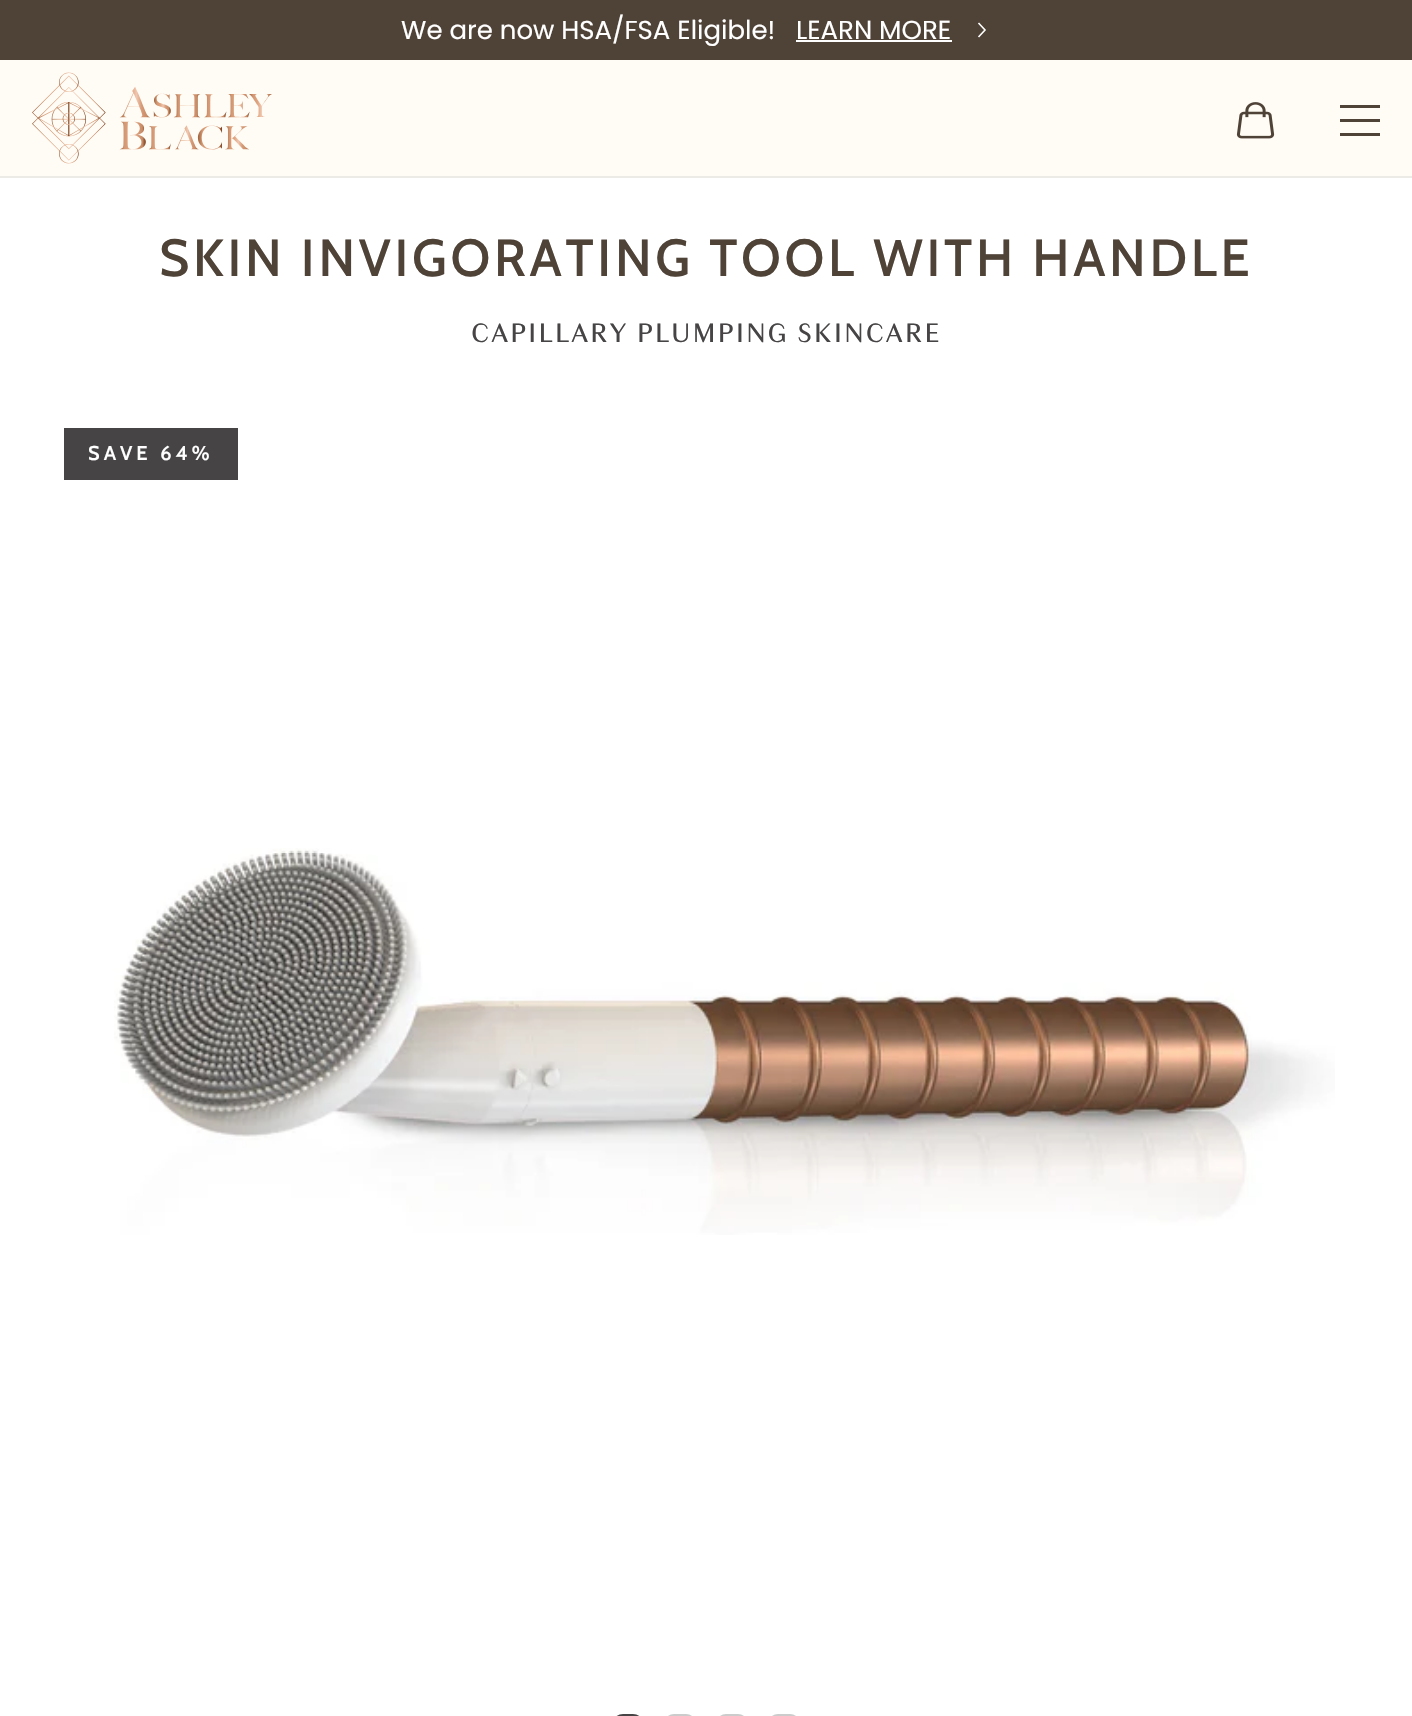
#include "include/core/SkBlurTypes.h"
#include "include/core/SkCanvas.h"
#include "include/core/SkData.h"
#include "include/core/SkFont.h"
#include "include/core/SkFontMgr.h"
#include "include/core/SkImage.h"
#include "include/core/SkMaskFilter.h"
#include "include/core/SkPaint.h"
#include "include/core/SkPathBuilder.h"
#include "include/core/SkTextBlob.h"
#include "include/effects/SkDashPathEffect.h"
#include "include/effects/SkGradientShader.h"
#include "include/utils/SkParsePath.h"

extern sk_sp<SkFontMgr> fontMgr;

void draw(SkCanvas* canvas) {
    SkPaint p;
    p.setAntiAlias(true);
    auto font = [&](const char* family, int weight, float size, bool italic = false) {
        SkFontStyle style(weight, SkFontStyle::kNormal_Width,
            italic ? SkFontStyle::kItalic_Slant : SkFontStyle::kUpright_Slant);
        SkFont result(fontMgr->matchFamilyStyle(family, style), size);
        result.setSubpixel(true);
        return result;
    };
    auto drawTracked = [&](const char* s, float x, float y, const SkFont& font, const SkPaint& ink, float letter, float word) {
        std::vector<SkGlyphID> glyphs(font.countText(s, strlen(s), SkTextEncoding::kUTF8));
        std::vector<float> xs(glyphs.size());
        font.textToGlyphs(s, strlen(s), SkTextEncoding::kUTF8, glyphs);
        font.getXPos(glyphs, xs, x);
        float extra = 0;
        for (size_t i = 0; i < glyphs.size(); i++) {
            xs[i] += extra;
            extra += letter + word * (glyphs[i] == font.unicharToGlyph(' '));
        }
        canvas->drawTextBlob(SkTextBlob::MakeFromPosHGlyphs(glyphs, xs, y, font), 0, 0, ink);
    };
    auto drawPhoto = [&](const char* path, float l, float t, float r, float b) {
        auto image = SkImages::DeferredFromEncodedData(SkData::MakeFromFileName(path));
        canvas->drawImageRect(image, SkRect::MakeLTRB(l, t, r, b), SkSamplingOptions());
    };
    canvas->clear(0xFFFFFFFF);
    p.setColor(0xFF4F4237);
    canvas->drawRect(SkRect::MakeLTRB(0, 0, 1412, 60), p);
    auto font1 = font("Poppins", 400, 26);
    p.setColor(0xFFFFFFFF);
    canvas->drawString("We are now HSA/FSA Eligible!", 401, 39, font1, p);
    canvas->drawString("LEARN MORE", 796, 39, font1, p);
    canvas->drawRect(SkRect::MakeLTRB(796, 40, 952, 42), p);
    p.setStyle(SkPaint::kStroke_Style);
    p.setStrokeWidth(1.6f);
    canvas->drawPath(SkPathBuilder().moveTo(978.5f, 23).lineTo(985, 30).lineTo(978.5f, 37).detach(), p);
    p.setStyle(SkPaint::kFill_Style);
    p.setColor(0xFFFFFCF5);
    canvas->drawRect(SkRect::MakeLTRB(0, 60, 1412, 176), p);
    p.setColor(0xFFEDEBE5);
    canvas->drawRect(SkRect::MakeLTRB(0, 176, 1412, 178), p);
    drawPhoto("media/1.png", 32, 72, 272, 164);
    drawPhoto("media/2.png", 1236, 102, 1275, 139);
    {
        const struct { float l, t, r, b; SkColor color; } items[] = {
            {1340, 105, 1380, 108, 0xFF4F4236},
            {1340, 119, 1380, 122, 0xFF4F4236},
            {1340, 133, 1380, 136, 0xFF4F4236},
        };
        for (auto [l, t, r, b, color] : items) {
            p.setColor(color);
            canvas->drawRect(SkRect::MakeLTRB(l, t, r, b), p);
        }
    }
    auto font2 = font("Cabin", 500, 52);
    p.setColor(0xFF4F4237);
    drawTracked("SKIN INVIGORATING TOOL WITH HANDLE", 159, 276, font2, p, 3.7f, 0);
    auto font3 = font("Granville", 400, 28);
    p.setColor(0xFF464445);
    drawTracked("CAPILLARY PLUMPING SKINCARE", 471, 342, font3, p, 1.4f, 0);
    canvas->drawRect(SkRect::MakeLTRB(64, 428, 238, 480), p);
    auto font4 = font("Cabin", 600, 20);
    p.setColor(0xFFFFFFFF);
    drawTracked("SAVE 64%", 88, 460, font4, p, 4, 0);
    drawPhoto("media/3.png", 114, 848, 1335, 1235);
    p.setStyle(SkPaint::kStroke_Style);
    p.setStrokeWidth(4);
    p.setColor(0xFF464445);
    canvas->drawRoundRect(SkRect::MakeLTRB(614, 1716, 642, 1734), 14, 14, p);
    p.setStrokeWidth(2);
    p.setColor(0xFFCCCCCC);
    canvas->drawRoundRect(SkRect::MakeLTRB(665, 1715, 695, 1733), 15, 15, p);
    canvas->drawRoundRect(SkRect::MakeLTRB(717, 1715, 747, 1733), 15, 15, p);
    canvas->drawRoundRect(SkRect::MakeLTRB(769, 1715, 799, 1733), 15, 15, p);
}
